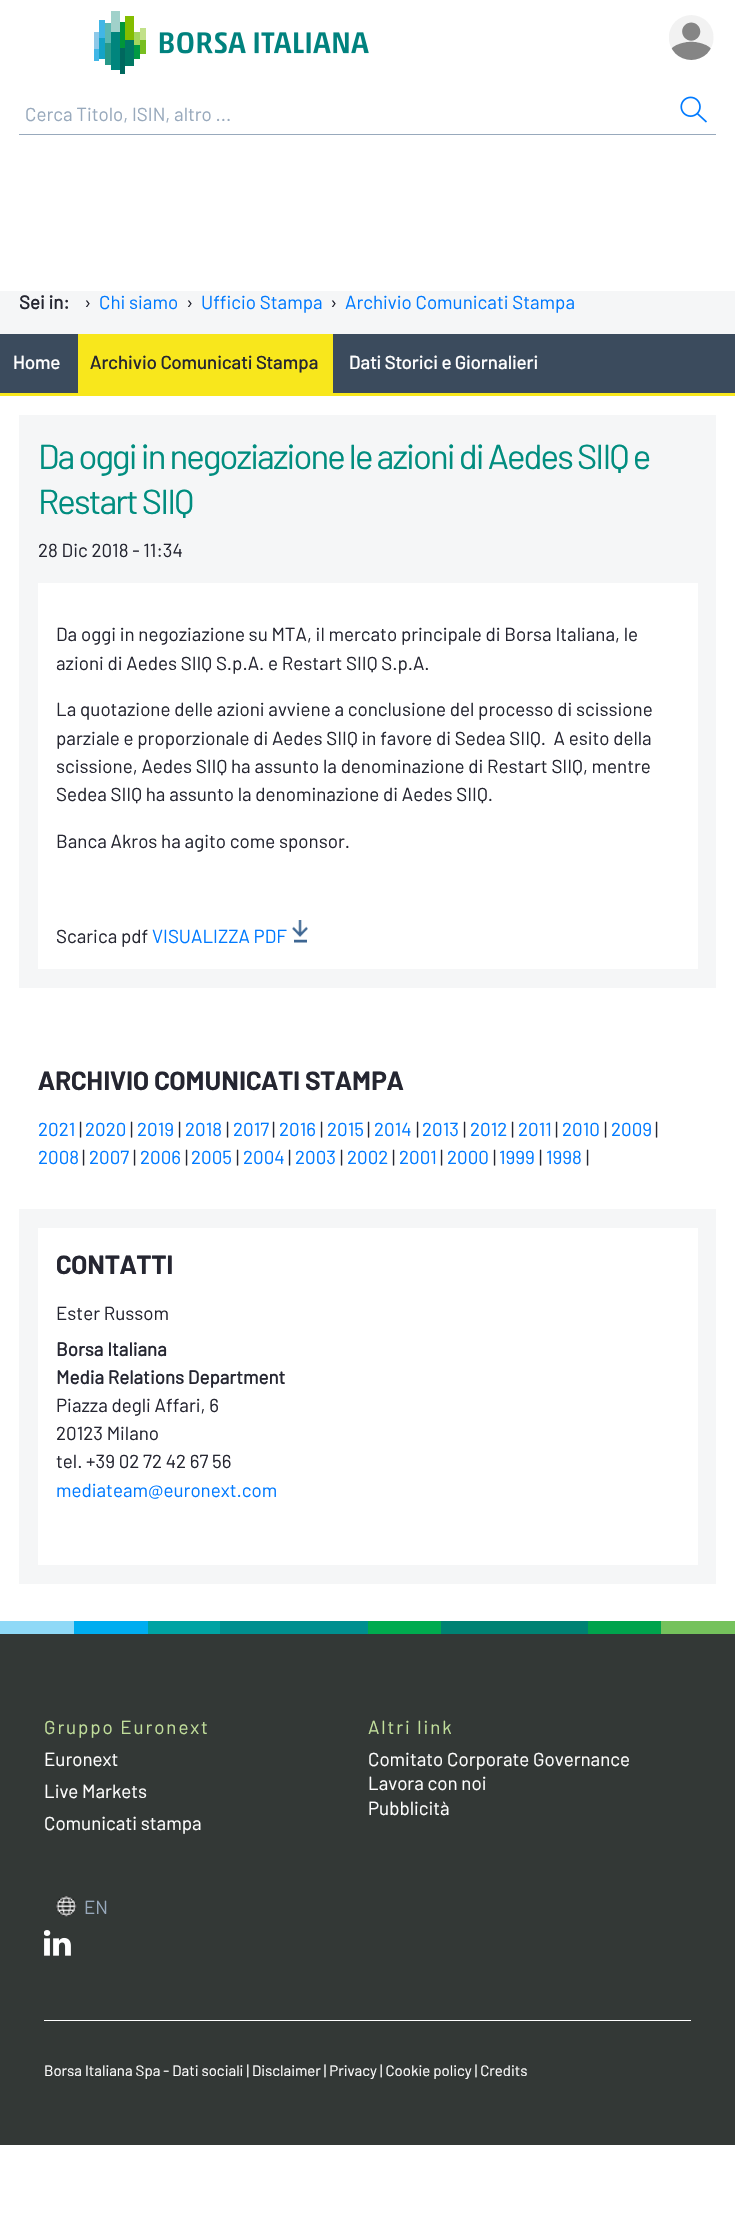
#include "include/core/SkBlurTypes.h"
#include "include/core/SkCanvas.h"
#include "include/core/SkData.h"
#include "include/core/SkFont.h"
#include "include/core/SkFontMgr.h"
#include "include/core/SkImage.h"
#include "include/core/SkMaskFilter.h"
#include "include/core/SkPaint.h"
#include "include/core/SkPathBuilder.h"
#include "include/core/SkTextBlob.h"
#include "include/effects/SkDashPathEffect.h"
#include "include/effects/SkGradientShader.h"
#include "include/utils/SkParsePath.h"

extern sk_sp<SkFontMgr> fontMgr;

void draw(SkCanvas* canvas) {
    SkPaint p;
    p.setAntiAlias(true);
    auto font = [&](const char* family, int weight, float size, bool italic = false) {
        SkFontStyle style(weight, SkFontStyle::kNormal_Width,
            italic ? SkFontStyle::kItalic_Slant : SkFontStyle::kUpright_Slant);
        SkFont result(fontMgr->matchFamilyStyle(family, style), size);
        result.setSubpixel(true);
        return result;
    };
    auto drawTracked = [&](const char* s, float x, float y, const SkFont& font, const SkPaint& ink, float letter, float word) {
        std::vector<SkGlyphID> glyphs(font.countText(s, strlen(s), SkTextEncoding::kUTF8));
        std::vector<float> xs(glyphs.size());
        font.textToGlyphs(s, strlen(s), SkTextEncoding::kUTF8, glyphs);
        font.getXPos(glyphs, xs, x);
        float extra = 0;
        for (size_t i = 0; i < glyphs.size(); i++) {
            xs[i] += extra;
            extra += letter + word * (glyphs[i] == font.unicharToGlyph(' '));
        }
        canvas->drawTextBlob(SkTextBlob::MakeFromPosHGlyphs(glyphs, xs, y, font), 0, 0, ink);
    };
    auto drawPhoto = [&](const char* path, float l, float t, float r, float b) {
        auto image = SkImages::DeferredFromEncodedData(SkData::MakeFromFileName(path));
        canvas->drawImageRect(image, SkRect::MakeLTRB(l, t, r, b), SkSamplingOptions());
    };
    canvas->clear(0xFFFFFFFF);
    drawPhoto("media/1.png", 94, 11, 369, 74);
    drawPhoto("media/2.png", 669, 15, 714, 60);
    p.setColor(0xFF98A9BC);
    canvas->drawRect(SkRect::MakeLTRB(19, 134, 716, 135), p);
    auto font1 = font("Barlow", 400, 18.75f);
    canvas->drawString("Cerca Titolo, ISIN, altro ...", 25, 121, font1, p);
    drawPhoto("media/3.png", 680, 96, 707, 123);
    p.setColor(0xFFF5F6F7);
    canvas->drawRect(SkRect::MakeLTRB(0, 291, 735, 334), p);
    auto font2 = font("Barlow", 700, 18.75f);
    p.setColor(0xFF252631);
    canvas->drawString("Sei in:", 19, 309, font2, p);
    canvas->drawString("›", 84, 309, font1, p);
    p.setColor(0xFF007AFF);
    canvas->drawString("Chi siamo", 99, 309, font1, p);
    p.setColor(0xFF252631);
    canvas->drawString("›", 186, 309, font1, p);
    p.setColor(0xFF007AFF);
    canvas->drawString("Ufficio Stampa", 201, 309, font1, p);
    p.setColor(0xFF252631);
    canvas->drawString("›", 330, 309, font1, p);
    p.setColor(0xFF007AFF);
    canvas->drawString("Archivio Comunicati Stampa", 345, 309, font1, p);
    p.setColor(0xFF3B4B5D);
    canvas->drawRect(SkRect::MakeLTRB(0, 334, 735, 393), p);
    p.setColor(0xFFF8E71C);
    canvas->drawRect(SkRect::MakeLTRB(0, 393, 735, 396), p);
    auto font3 = font("Barlow", 500, 18.75f);
    p.setColor(0xFFFFFFFF);
    canvas->drawString("Home", 13, 369, font3, p);
    p.setColor(0xFFF8E71C);
    canvas->drawRect(SkRect::MakeLTRB(78, 334, 333, 393), p);
    p.setColor(0xFF252631);
    canvas->drawString("Archivio Comunicati Stampa", 90, 369, font3, p);
    p.setColor(0xFFFFFFFF);
    canvas->drawString("Dati Storici e Giornalieri", 349, 369, font3, p);
    p.setColor(0xFFF5F6F7);
    canvas->drawRect(SkRect::MakeLTRB(19, 415, 716, 988), p);
    auto font4 = font("Barlow", 400, 34.7f);
    p.setColor(0xFF008D7F);
    drawTracked("Da oggi in negoziazione le azioni di Aedes SIIQ e", 38, 469, font4, p, -1.9f, 0);
    drawTracked("Restart SIIQ", 38, 514, font4, p, -1.9f, 0);
    p.setColor(0xFF252631);
    canvas->drawString("28 Dic 2018 - 11:34", 38, 557, font1, p);
    p.setColor(0xFFFFFFFF);
    canvas->drawRect(SkRect::MakeLTRB(38, 583, 698, 969), p);
    p.setColor(0xFF252631);
    {
        const struct { const char* s; float x, y; } items[] = {
            {"Da oggi in negoziazione su MTA, il mercato principale di Borsa Italiana, le", 56, 641},
            {"azioni di Aedes SIIQ S.p.A. e Restart SIIQ S.p.A.", 56, 670},
            {"La quotazione delle azioni avviene a conclusione del processo di scissione", 56, 716},
            {"parziale e proporzionale di Aedes SIIQ in favore di Sedea SIIQ.  A esito della", 56, 745},
            {"scissione, Aedes SIIQ ha assunto la denominazione di Restart SIIQ, mentre", 56, 773},
            {"Sedea SIIQ ha assunto la denominazione di Aedes SIIQ.", 56, 801},
            {"Banca Akros ha agito come sponsor.", 56, 848},
            {"Scarica pdf", 56, 943},
        };
        for (auto [s, x, y] : items) {
            canvas->drawString(s, x, y, font1, p);
        }
    }
    p.setColor(0xFF007AFF);
    canvas->drawString("VISUALIZZA PDF", 152, 943, font1, p);
    drawPhoto("media/4.png", 292, 920, 308, 943);
    auto font5 = font("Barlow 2", 700, 26.25f);
    p.setColor(0xFF252631);
    canvas->drawString("ARCHIVIO COMUNICATI STAMPA", 38, 1090, font5, p);
    p.setColor(0xFF007AFF);
    canvas->drawString("2021", 38, 1136, font1, p);
    p.setColor(0xFF252631);
    canvas->drawString("|", 79, 1136, font1, p);
    p.setColor(0xFF007AFF);
    canvas->drawString("2020", 85, 1136, font1, p);
    p.setColor(0xFF252631);
    canvas->drawString("|", 130, 1136, font1, p);
    p.setColor(0xFF007AFF);
    canvas->drawString("2019", 137, 1136, font1, p);
    p.setColor(0xFF252631);
    canvas->drawString("|", 178, 1136, font1, p);
    p.setColor(0xFF007AFF);
    canvas->drawString("2018", 185, 1136, font1, p);
    p.setColor(0xFF252631);
    canvas->drawString("|", 226, 1136, font1, p);
    p.setColor(0xFF007AFF);
    canvas->drawString("2017", 233, 1136, font1, p);
    p.setColor(0xFF252631);
    canvas->drawString("|", 272, 1136, font1, p);
    p.setColor(0xFF007AFF);
    canvas->drawString("2016", 279, 1136, font1, p);
    p.setColor(0xFF252631);
    canvas->drawString("|", 320, 1136, font1, p);
    p.setColor(0xFF007AFF);
    canvas->drawString("2015", 327, 1136, font1, p);
    p.setColor(0xFF252631);
    canvas->drawString("|", 367, 1136, font1, p);
    p.setColor(0xFF007AFF);
    canvas->drawString("2014", 374, 1136, font1, p);
    p.setColor(0xFF252631);
    canvas->drawString("|", 416, 1136, font1, p);
    p.setColor(0xFF007AFF);
    canvas->drawString("2013", 422, 1136, font1, p);
    p.setColor(0xFF252631);
    canvas->drawString("|", 463, 1136, font1, p);
    p.setColor(0xFF007AFF);
    canvas->drawString("2012", 470, 1136, font1, p);
    p.setColor(0xFF252631);
    canvas->drawString("|", 511, 1136, font1, p);
    p.setColor(0xFF007AFF);
    canvas->drawString("2011", 518, 1136, font1, p);
    p.setColor(0xFF252631);
    canvas->drawString("|", 555, 1136, font1, p);
    p.setColor(0xFF007AFF);
    canvas->drawString("2010", 562, 1136, font1, p);
    p.setColor(0xFF252631);
    canvas->drawString("|", 604, 1136, font1, p);
    p.setColor(0xFF007AFF);
    canvas->drawString("2009", 611, 1136, font1, p);
    p.setColor(0xFF252631);
    canvas->drawString("|", 655, 1136, font1, p);
    p.setColor(0xFF007AFF);
    canvas->drawString("2008", 38, 1164, font1, p);
    p.setColor(0xFF252631);
    canvas->drawString("|", 82, 1164, font1, p);
    p.setColor(0xFF007AFF);
    canvas->drawString("2007", 89, 1164, font1, p);
    p.setColor(0xFF252631);
    canvas->drawString("|", 133, 1164, font1, p);
    p.setColor(0xFF007AFF);
    canvas->drawString("2006", 140, 1164, font1, p);
    p.setColor(0xFF252631);
    canvas->drawString("|", 185, 1164, font1, p);
    p.setColor(0xFF007AFF);
    canvas->drawString("2005", 191, 1164, font1, p);
    p.setColor(0xFF252631);
    canvas->drawString("|", 236, 1164, font1, p);
    p.setColor(0xFF007AFF);
    canvas->drawString("2004", 243, 1164, font1, p);
    p.setColor(0xFF252631);
    canvas->drawString("|", 288, 1164, font1, p);
    p.setColor(0xFF007AFF);
    canvas->drawString("2003", 295, 1164, font1, p);
    p.setColor(0xFF252631);
    canvas->drawString("|", 340, 1164, font1, p);
    p.setColor(0xFF007AFF);
    canvas->drawString("2002", 347, 1164, font1, p);
    p.setColor(0xFF252631);
    canvas->drawString("|", 392, 1164, font1, p);
    p.setColor(0xFF007AFF);
    canvas->drawString("2001", 399, 1164, font1, p);
    p.setColor(0xFF252631);
    canvas->drawString("|", 440, 1164, font1, p);
    p.setColor(0xFF007AFF);
    canvas->drawString("2000", 447, 1164, font1, p);
    p.setColor(0xFF252631);
    canvas->drawString("|", 493, 1164, font1, p);
    p.setColor(0xFF007AFF);
    canvas->drawString("1999", 499, 1164, font1, p);
    p.setColor(0xFF252631);
    canvas->drawString("|", 539, 1164, font1, p);
    p.setColor(0xFF007AFF);
    canvas->drawString("1998", 546, 1164, font1, p);
    p.setColor(0xFF252631);
    canvas->drawString("|", 586, 1164, font1, p);
    p.setColor(0xFFF5F6F7);
    canvas->drawRect(SkRect::MakeLTRB(19, 1209, 716, 1584), p);
    p.setColor(0xFFFFFFFF);
    canvas->drawRect(SkRect::MakeLTRB(38, 1228, 698, 1565), p);
    p.setColor(0xFF252631);
    canvas->drawString("CONTATTI", 56, 1274, font5, p);
    canvas->drawString("Ester Russom", 56, 1320, font1, p);
    canvas->drawString("Borsa Italiana", 56, 1356, font2, p);
    canvas->drawString("Media Relations Department", 56, 1384, font2, p);
    {
        const struct { const char* s; float x, y; } items[] = {
            {"Piazza degli Affari, 6", 56, 1412},
            {"20123 Milano", 56, 1440},
            {"tel. +39 02 72 42 67 56", 56, 1468},
        };
        for (auto [s, x, y] : items) {
            canvas->drawString(s, x, y, font1, p);
        }
    }
    p.setColor(0xFF007AFF);
    canvas->drawString("mediateam@euronext.com", 56, 1497, font1, p);
    {
        const struct { float l, t, r, b; SkColor color; } items[] = {
            {0, 1621, 74, 1634, 0xFF8FD9F7},
            {74, 1621, 148, 1634, 0xFF00ADF0},
            {148, 1621, 220, 1634, 0xFF00A3A3},
            {220, 1621, 368, 1634, 0xFF008F8F},
            {368, 1621, 441, 1634, 0xFF00AB4F},
            {441, 1621, 588, 1634, 0xFF008273},
            {588, 1621, 661, 1634, 0xFF00A34D},
            {661, 1621, 735, 1634, 0xFF75C25C},
            {0, 1634, 735, 2145, 0xFF333836},
        };
        for (auto [l, t, r, b, color] : items) {
            p.setColor(color);
            canvas->drawRect(SkRect::MakeLTRB(l, t, r, b), p);
        }
    }
    p.setColor(0xFFC1DE9B);
    drawTracked("Gruppo Euronext", 44, 1734, font1, p, 1.9f, 0);
    p.setColor(0xFFFFFFFF);
    {
        const struct { const char* s; float x, y; } items[] = {
            {"Euronext", 44, 1766},
            {"Live Markets", 44, 1798},
            {"Comunicati stampa", 44, 1830},
        };
        for (auto [s, x, y] : items) {
            canvas->drawString(s, x, y, font1, p);
        }
    }
    p.setColor(0xFFC1DE9B);
    drawTracked("Altri link", 368, 1734, font1, p, 1.9f, 0);
    p.setColor(0xFFFFFFFF);
    {
        const struct { const char* s; float x, y; } items[] = {
            {"Comitato Corporate Governance", 368, 1766},
            {"Lavora con noi", 368, 1790},
            {"Pubblicità", 368, 1815},
        };
        for (auto [s, x, y] : items) {
            canvas->drawString(s, x, y, font1, p);
        }
    }
    drawPhoto("media/5.png", 56, 1896, 77, 1917);
    p.setColor(0xFF98A9BC);
    canvas->drawString("EN", 84, 1914, font1, p);
    drawPhoto("media/6.png", 44, 1930, 71, 1956);
    p.setColor(0xFFFFFFFF);
    canvas->drawRect(SkRect::MakeLTRB(44, 2020, 691, 2021), p);
    auto font6 = font("Barlow", 400, 15);
    canvas->drawString("Borsa Italiana Spa - Dati sociali | Disclaimer | Privacy | Cookie policy | Credits", 44, 2076, font6, p);
}
